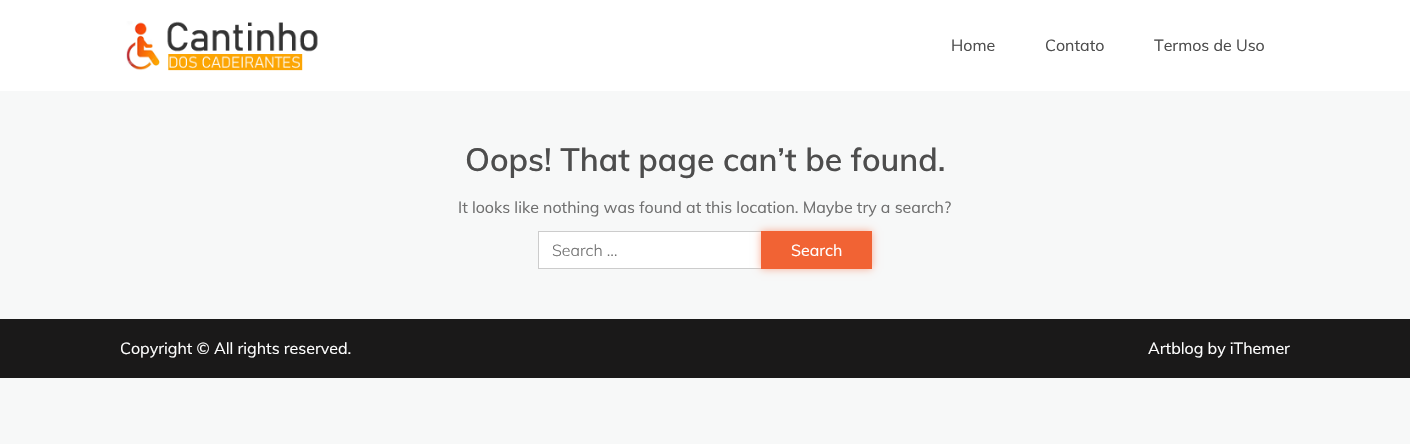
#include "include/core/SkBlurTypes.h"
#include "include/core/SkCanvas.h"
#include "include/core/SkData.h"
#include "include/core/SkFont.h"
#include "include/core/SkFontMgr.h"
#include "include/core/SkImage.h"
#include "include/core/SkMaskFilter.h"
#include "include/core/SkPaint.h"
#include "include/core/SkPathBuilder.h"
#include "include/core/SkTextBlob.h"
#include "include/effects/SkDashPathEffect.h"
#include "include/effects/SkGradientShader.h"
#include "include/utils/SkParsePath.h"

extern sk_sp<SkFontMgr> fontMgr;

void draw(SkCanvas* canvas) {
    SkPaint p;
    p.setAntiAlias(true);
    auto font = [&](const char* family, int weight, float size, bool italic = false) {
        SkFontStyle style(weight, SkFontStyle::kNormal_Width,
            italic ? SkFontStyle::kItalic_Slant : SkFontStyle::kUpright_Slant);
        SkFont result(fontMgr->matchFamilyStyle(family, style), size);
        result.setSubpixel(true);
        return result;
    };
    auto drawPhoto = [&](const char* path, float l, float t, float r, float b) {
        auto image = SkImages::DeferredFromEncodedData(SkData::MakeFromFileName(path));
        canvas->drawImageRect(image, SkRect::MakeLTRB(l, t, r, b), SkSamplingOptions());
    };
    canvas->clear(0xFFF7F8F8);
    p.setColor(0xFFFFFFFF);
    canvas->drawRect(SkRect::MakeLTRB(0, 0, 1410, 91), p);
    drawPhoto("media/1.png", 126, 21, 318, 71);
    auto font1 = font("Muli", 400, 16);
    p.setColor(0xFF4D4D4D);
    {
        const struct { const char* s; float x, y; } items[] = {
            {"Home", 951, 51},
            {"Contato", 1045, 51},
            {"Termos de Uso", 1154, 51},
        };
        for (auto [s, x, y] : items) {
            canvas->drawString(s, x, y, font1, p);
        }
    }
    auto font2 = font("Muli", 600, 32);
    canvas->drawString("Oops! That page can’t be found.", 465, 171, font2, p);
    p.setColor(0xFF707070);
    canvas->drawString("It looks like nothing was found at this location. Maybe try a search?", 458, 213, font1, p);
    p.setColor(0xFFFFFFFF);
    canvas->drawRect(SkRect::MakeLTRB(538.5f, 231.5f, 761.5f, 268.5f), p);
    p.setStyle(SkPaint::kStroke_Style);
    p.setStrokeWidth(1);
    p.setColor(0xFFCCCCCC);
    canvas->drawRect(SkRect::MakeLTRB(538.5f, 231.5f, 761.5f, 268.5f), p);
    auto font3 = font("Muli", 300, 16);
    p.setStyle(SkPaint::kFill_Style);
    p.setColor(0xFF707070);
    canvas->drawString("Search …", 552, 256, font3, p);
    p.setColor(0xFFF8AC93);
    p.setMaskFilter(SkMaskFilter::MakeBlur(kNormal_SkBlurStyle, 4));
    canvas->drawRect(SkRect::MakeLTRB(761, 231, 872, 269), p);
    p.setMaskFilter(nullptr);
    p.setColor(0xFFF16334);
    canvas->drawRect(SkRect::MakeLTRB(761, 231, 872, 269), p);
    p.setColor(0xFFFFFFFF);
    canvas->drawString("Search", 791, 256, font1, p);
    p.setColor(0xFF1A1919);
    canvas->drawRect(SkRect::MakeLTRB(0, 319, 1410, 378), p);
    p.setColor(0xFFFFFFFF);
    canvas->drawString("Copyright © All rights reserved.", 120, 354, font1, p);
    canvas->drawString("Artblog by iThemer", 1148, 354, font1, p);
}
